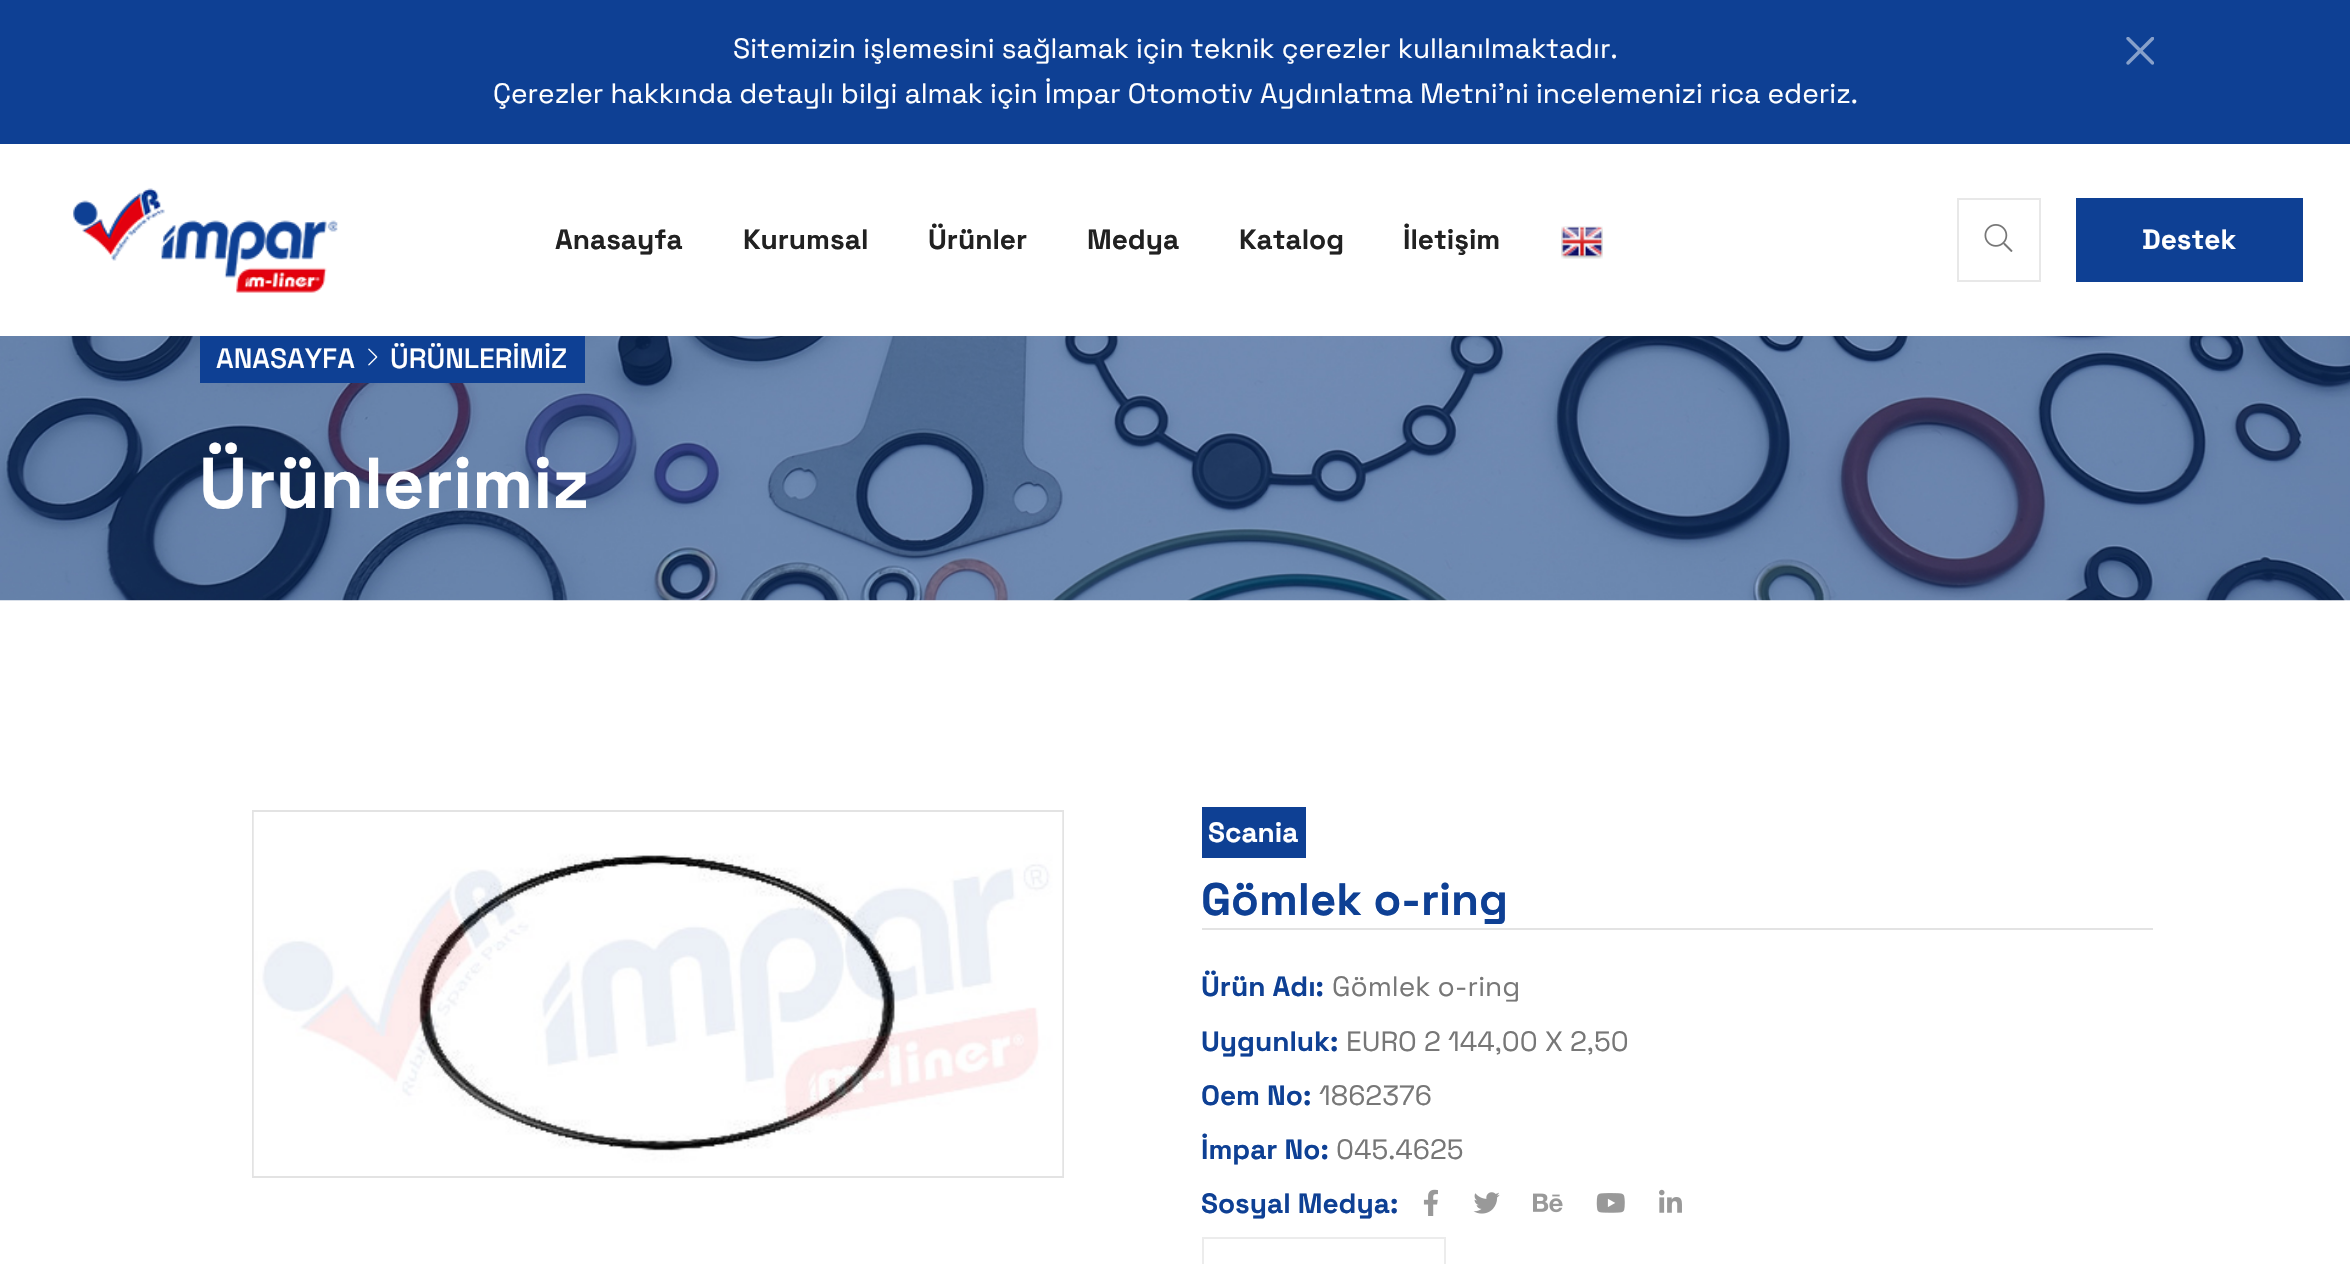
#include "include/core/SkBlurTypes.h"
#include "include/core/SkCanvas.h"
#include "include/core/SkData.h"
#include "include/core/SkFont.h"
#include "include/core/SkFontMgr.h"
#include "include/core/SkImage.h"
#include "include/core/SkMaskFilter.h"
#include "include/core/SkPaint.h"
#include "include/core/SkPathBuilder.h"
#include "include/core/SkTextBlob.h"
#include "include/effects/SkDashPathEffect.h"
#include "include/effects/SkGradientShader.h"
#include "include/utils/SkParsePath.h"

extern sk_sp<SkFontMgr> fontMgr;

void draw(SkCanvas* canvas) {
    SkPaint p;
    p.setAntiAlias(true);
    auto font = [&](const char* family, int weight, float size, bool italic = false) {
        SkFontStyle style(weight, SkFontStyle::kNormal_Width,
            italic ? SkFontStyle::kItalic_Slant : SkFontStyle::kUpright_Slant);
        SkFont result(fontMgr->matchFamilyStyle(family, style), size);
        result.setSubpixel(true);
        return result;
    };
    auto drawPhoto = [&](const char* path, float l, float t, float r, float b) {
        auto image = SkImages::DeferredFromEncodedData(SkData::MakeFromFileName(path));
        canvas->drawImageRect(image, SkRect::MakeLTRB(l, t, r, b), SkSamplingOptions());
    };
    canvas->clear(0xFFFFFFFF);
    p.setColor(0xFF0E4094);
    canvas->drawRect(SkRect::MakeLTRB(0, 0, 2350, 144), p);
    auto font1 = font("Space Grotesk", 400, 28);
    p.setColor(0xFFFFFFFF);
    canvas->drawString("Sitemizin işlemesini sağlamak için teknik çerezler kullanılmaktadır.", 733, 58, font1, p);
    canvas->drawString("Çerezler hakkında detaylı bilgi almak için İmpar Otomotiv Aydınlatma Metni’ni incelemenizi rica ederiz.", 493, 103, font1, p);
    drawPhoto("media/1.png", 2126, 37, 2154, 65);
    drawPhoto("media/2.png", 73, 188, 338, 293);
    auto font2 = font("Space Grotesk", 700, 28);
    p.setColor(0xFF212121);
    {
        const struct { const char* s; float x, y; } items[] = {
            {"Anasayfa", 555, 249},
            {"Kurumsal", 743, 249},
            {"Ürünler", 928, 249},
            {"Medya", 1087, 249},
            {"Katalog", 1239, 249},
            {"İletişim", 1403, 249},
        };
        for (auto [s, x, y] : items) {
            canvas->drawString(s, x, y, font2, p);
        }
    }
    drawPhoto("media/3.png", 1561, 226, 1603, 259);
    p.setStyle(SkPaint::kStroke_Style);
    p.setStrokeWidth(2);
    p.setColor(0xFFE8E8E8);
    canvas->drawRect(SkRect::MakeLTRB(1958, 199, 2040, 281), p);
    drawPhoto("media/4.png", 1984, 224, 2013, 252);
    p.setStyle(SkPaint::kFill_Style);
    p.setColor(0xFF0E4094);
    canvas->drawRect(SkRect::MakeLTRB(2076, 198, 2303, 282), p);
    p.setColor(0xFFFFFFFF);
    canvas->drawString("Destek", 2142, 249, font2, p);
    drawPhoto("media/5.png", 0, 336, 2350, 601);
    p.setColor(0xFF0E4094);
    canvas->drawRect(SkRect::MakeLTRB(200, 336, 585, 383), p);
    auto font3 = font("Space Grotesk", 500, 28);
    p.setColor(0xFFFFFFFF);
    canvas->drawString("ANASAYFA", 216, 368, font3, p);
    drawPhoto("media/6.png", 368, 348, 378, 366);
    canvas->drawString("ÜRÜNLERİMİZ", 390, 368, font3, p);
    auto font4 = font("Space Grotesk", 700, 71.75f);
    canvas->drawString("Ürünlerimiz", 199, 508, font4, p);
    p.setStyle(SkPaint::kStroke_Style);
    p.setColor(0xFFE3E3E3);
    canvas->drawRect(SkRect::MakeLTRB(253, 811, 1063, 1177), p);
    drawPhoto("media/7.png", 253, 812, 1063, 1176);
    p.setStyle(SkPaint::kFill_Style);
    p.setColor(0xFF0E4094);
    canvas->drawRect(SkRect::MakeLTRB(1202, 807, 1306, 858), p);
    p.setColor(0xFFFFFFFF);
    canvas->drawString("Scania", 1208, 842, font2, p);
    p.setColor(0xFFE3E3E3);
    canvas->drawRect(SkRect::MakeLTRB(1202, 928, 2153, 930), p);
    auto font5 = font("Space Grotesk", 700, 45.5f);
    p.setColor(0xFF0E4094);
    canvas->drawString("Gömlek o-ring", 1201, 915, font5, p);
    canvas->drawString("Ürün Adı:", 1201, 996, font2, p);
    p.setColor(0xFF777777);
    canvas->drawString("Gömlek o-ring", 1332, 996, font1, p);
    p.setColor(0xFF0E4094);
    canvas->drawString("Uygunluk:", 1201, 1051, font2, p);
    p.setColor(0xFF777777);
    canvas->drawString("EURO 2 144,00 X 2,50", 1346, 1051, font1, p);
    p.setColor(0xFF0E4094);
    canvas->drawString("Oem No:", 1201, 1105, font2, p);
    p.setColor(0xFF777777);
    canvas->drawString("1862376", 1319, 1105, font1, p);
    p.setColor(0xFF0E4094);
    canvas->drawString("İmpar No:", 1201, 1159, font2, p);
    p.setColor(0xFF777777);
    canvas->drawString("045.4625", 1336, 1159, font1, p);
    p.setColor(0xFF0E4094);
    canvas->drawString("Sosyal Medya:", 1201, 1213, font2, p);
    drawPhoto("media/8.png", 1423, 1189, 1438, 1216);
    drawPhoto("media/9.png", 1473, 1192, 1500, 1214);
    drawPhoto("media/10.png", 1533, 1193, 1563, 1213);
    drawPhoto("media/11.png", 1596, 1193, 1625, 1213);
    drawPhoto("media/12.png", 1659, 1189, 1682, 1213);
    p.setStyle(SkPaint::kStroke_Style);
    p.setColor(0xFFECECEC);
    canvas->drawRect(SkRect::MakeLTRB(1203, 1238, 1445, 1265), p);
}
